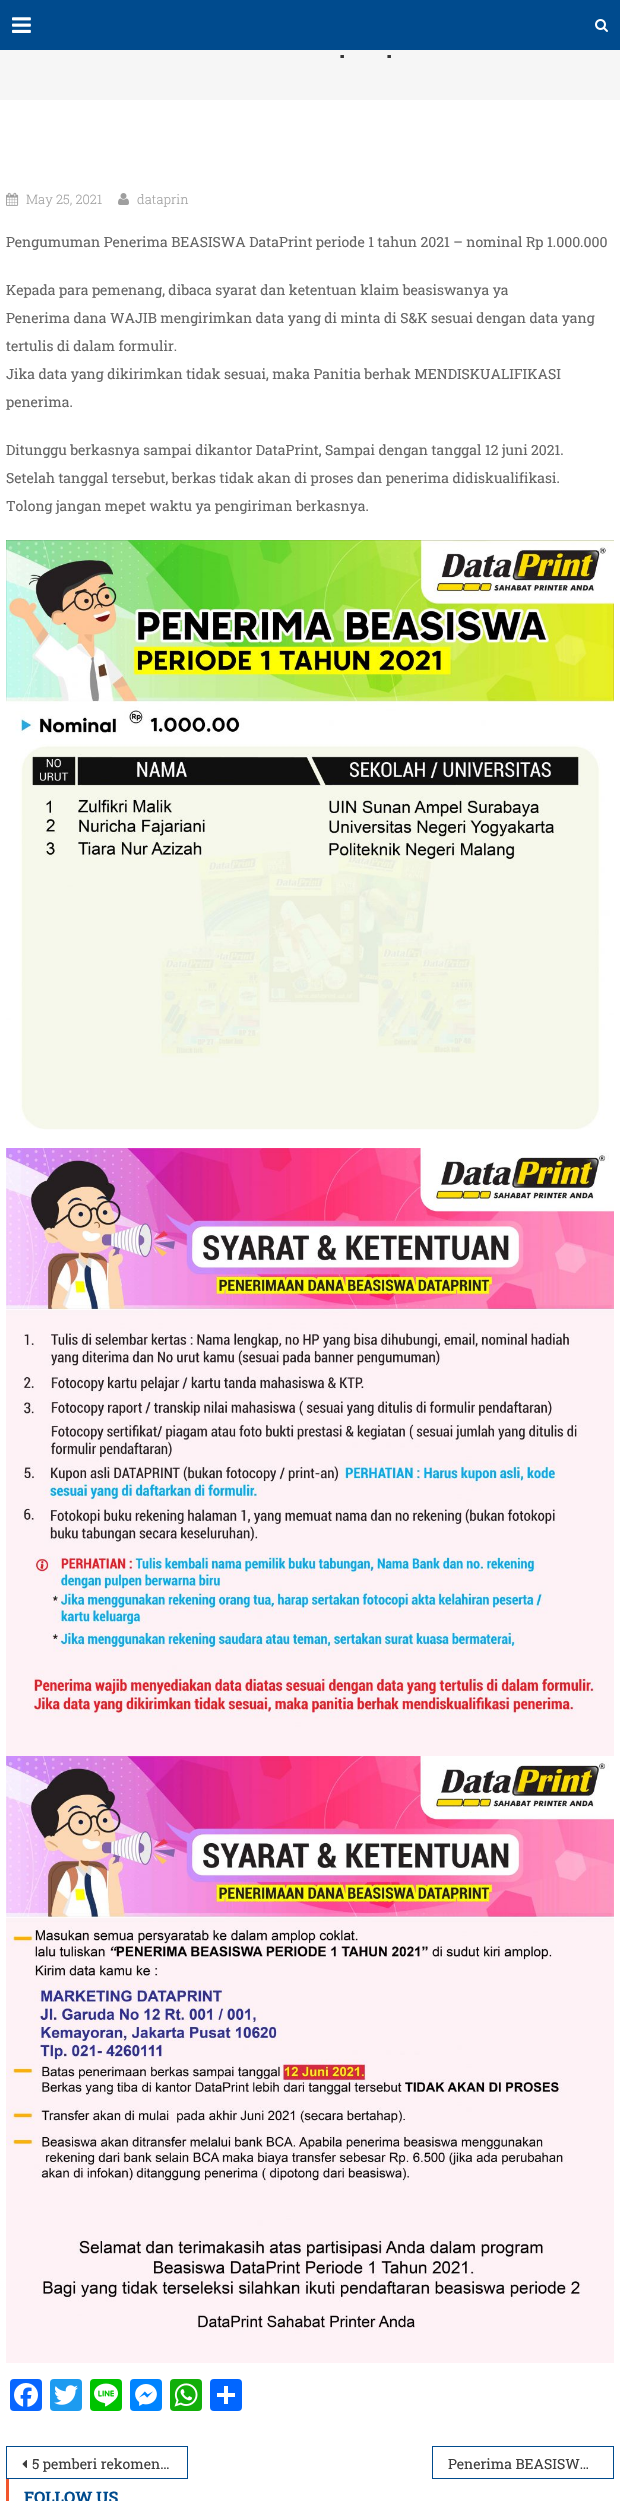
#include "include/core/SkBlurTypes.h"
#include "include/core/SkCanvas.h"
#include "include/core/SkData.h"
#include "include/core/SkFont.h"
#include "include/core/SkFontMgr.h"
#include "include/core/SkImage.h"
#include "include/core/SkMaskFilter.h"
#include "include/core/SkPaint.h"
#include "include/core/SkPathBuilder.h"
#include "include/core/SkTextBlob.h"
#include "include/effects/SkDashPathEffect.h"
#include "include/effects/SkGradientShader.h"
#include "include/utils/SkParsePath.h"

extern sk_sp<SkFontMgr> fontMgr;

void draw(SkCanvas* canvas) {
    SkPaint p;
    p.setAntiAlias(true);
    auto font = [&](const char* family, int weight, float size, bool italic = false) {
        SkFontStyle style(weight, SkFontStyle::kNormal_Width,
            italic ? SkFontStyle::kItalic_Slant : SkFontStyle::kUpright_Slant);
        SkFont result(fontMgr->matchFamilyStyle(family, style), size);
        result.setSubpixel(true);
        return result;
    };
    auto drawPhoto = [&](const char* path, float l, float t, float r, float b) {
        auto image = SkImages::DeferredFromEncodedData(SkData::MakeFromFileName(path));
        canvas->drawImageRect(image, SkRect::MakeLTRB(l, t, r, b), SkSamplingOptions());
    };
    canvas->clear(0xFFFFFFFF);
    p.setColor(0xFF004B8E);
    canvas->drawRect(SkRect::MakeLTRB(0, 0, 620, 50), p);
    drawPhoto("media/1.png", 12, 17, 31, 33);
    drawPhoto("media/2.png", 595, 19, 608, 32);
    p.setColor(0xFFF6F6F6);
    canvas->drawRect(SkRect::MakeLTRB(0, 50, 620, 100), p);
    auto font1 = font("Roboto Slab", 700, 24);
    p.setColor(0xFF353535);
    canvas->drawString(".", 339, 58, font1, p);
    canvas->drawString(".", 386, 58, font1, p);
    drawPhoto("media/3.png", 6, 192, 19, 206);
    auto font2 = font("Roboto Slab", 300, 13);
    p.setColor(0xFF9F9F9F);
    canvas->drawString("May 25, 2021", 26, 204, font2, p);
    drawPhoto("media/4.png", 118, 193, 129, 205);
    canvas->drawString("dataprin", 137, 204, font2, p);
    auto font3 = font("Roboto Slab", 400, 14);
    p.setColor(0xFF666666);
    {
        const struct { const char* s; float x, y; } items[] = {
            {"Pengumuman Penerima BEASISWA DataPrint periode 1 tahun 2021 – nominal Rp 1.000.000", 6, 247},
            {"Kepada para pemenang, dibaca syarat dan ketentuan klaim beasiswanya ya", 6, 295},
            {"Penerima dana WAJIB mengirimkan data yang di minta di S&K sesuai dengan data yang", 6, 323},
            {"tertulis di dalam formulir.", 6, 351},
            {"Jika data yang dikirimkan tidak sesuai, maka Panitia berhak MENDISKUALIFIKASI", 6, 379},
            {"penerima.", 6, 407},
            {"Ditunggu berkasnya sampai dikantor DataPrint, Sampai dengan tanggal 12 juni 2021.", 6, 455},
            {"Setelah tanggal tersebut, berkas tidak akan di proses dan penerima didiskualifikasi.", 6, 483},
            {"Tolong jangan mepet waktu ya pengiriman berkasnya.", 6, 511},
        };
        for (auto [s, x, y] : items) {
            canvas->drawString(s, x, y, font3, p);
        }
    }
    drawPhoto("media/5.png", 6, 540, 614, 1130);
    drawPhoto("media/6.png", 6, 1148, 614, 1756);
    drawPhoto("media/7.png", 6, 1756, 614, 2363);
    p.setColor(0xFF0866FF);
    canvas->drawRoundRect(SkRect::MakeLTRB(10, 2379, 42, 2411), 4, 4, p);
    drawPhoto("media/8.png", 14, 2383, 38, 2407);
    p.setColor(0xFF1D9BF0);
    canvas->drawRoundRect(SkRect::MakeLTRB(50, 2379, 82, 2411), 4, 4, p);
    drawPhoto("media/9.png", 54, 2385, 78, 2405);
    p.setColor(0xFF00C300);
    canvas->drawRoundRect(SkRect::MakeLTRB(90, 2379, 122, 2411), 4, 4, p);
    drawPhoto("media/10.png", 94, 2383, 118, 2407);
    p.setColor(0xFF0084FF);
    canvas->drawRoundRect(SkRect::MakeLTRB(130, 2379, 162, 2411), 4, 4, p);
    drawPhoto("media/11.png", 135, 2384, 157, 2406);
    p.setColor(0xFF12AF0A);
    canvas->drawRoundRect(SkRect::MakeLTRB(170, 2379, 202, 2411), 4, 4, p);
    drawPhoto("media/12.png", 174, 2383, 198, 2407);
    p.setColor(0xFF0166FF);
    canvas->drawRoundRect(SkRect::MakeLTRB(210, 2379, 242, 2411), 4, 4, p);
    p.setColor(0xFFFFFFFF);
    canvas->drawRect(SkRect::MakeLTRB(224, 2386, 228, 2404), p);
    canvas->drawRect(SkRect::MakeLTRB(217, 2393, 235, 2397), p);
    p.setStyle(SkPaint::kStroke_Style);
    p.setStrokeWidth(1);
    p.setColor(0xFF004B8E);
    canvas->drawRect(SkRect::MakeLTRB(6.5f, 2446.5f, 187.5f, 2478.5f), p);
    drawPhoto("media/13.png", 22, 2460, 27, 2468);
    p.setStyle(SkPaint::kFill_Style);
    p.setColor(0xFF3D3D3D);
    canvas->drawString("5 pemberi rekomen…", 32, 2469, font3, p);
    p.setStyle(SkPaint::kStroke_Style);
    p.setColor(0xFF004B8E);
    canvas->drawRect(SkRect::MakeLTRB(432.5f, 2446.5f, 613.5f, 2478.5f), p);
    p.setStyle(SkPaint::kFill_Style);
    p.setColor(0xFF3D3D3D);
    canvas->drawString("Penerima BEASISW…", 448, 2469, font3, p);
    p.setColor(0xFFF2552C);
    canvas->drawRect(SkRect::MakeLTRB(6, 2479, 9, 2501), p);
    auto font4 = font("Roboto Slab", 700, 16);
    p.setColor(0xFF004B8E);
    canvas->drawString("FOLLOW US", 24, 2503, font4, p);
}
